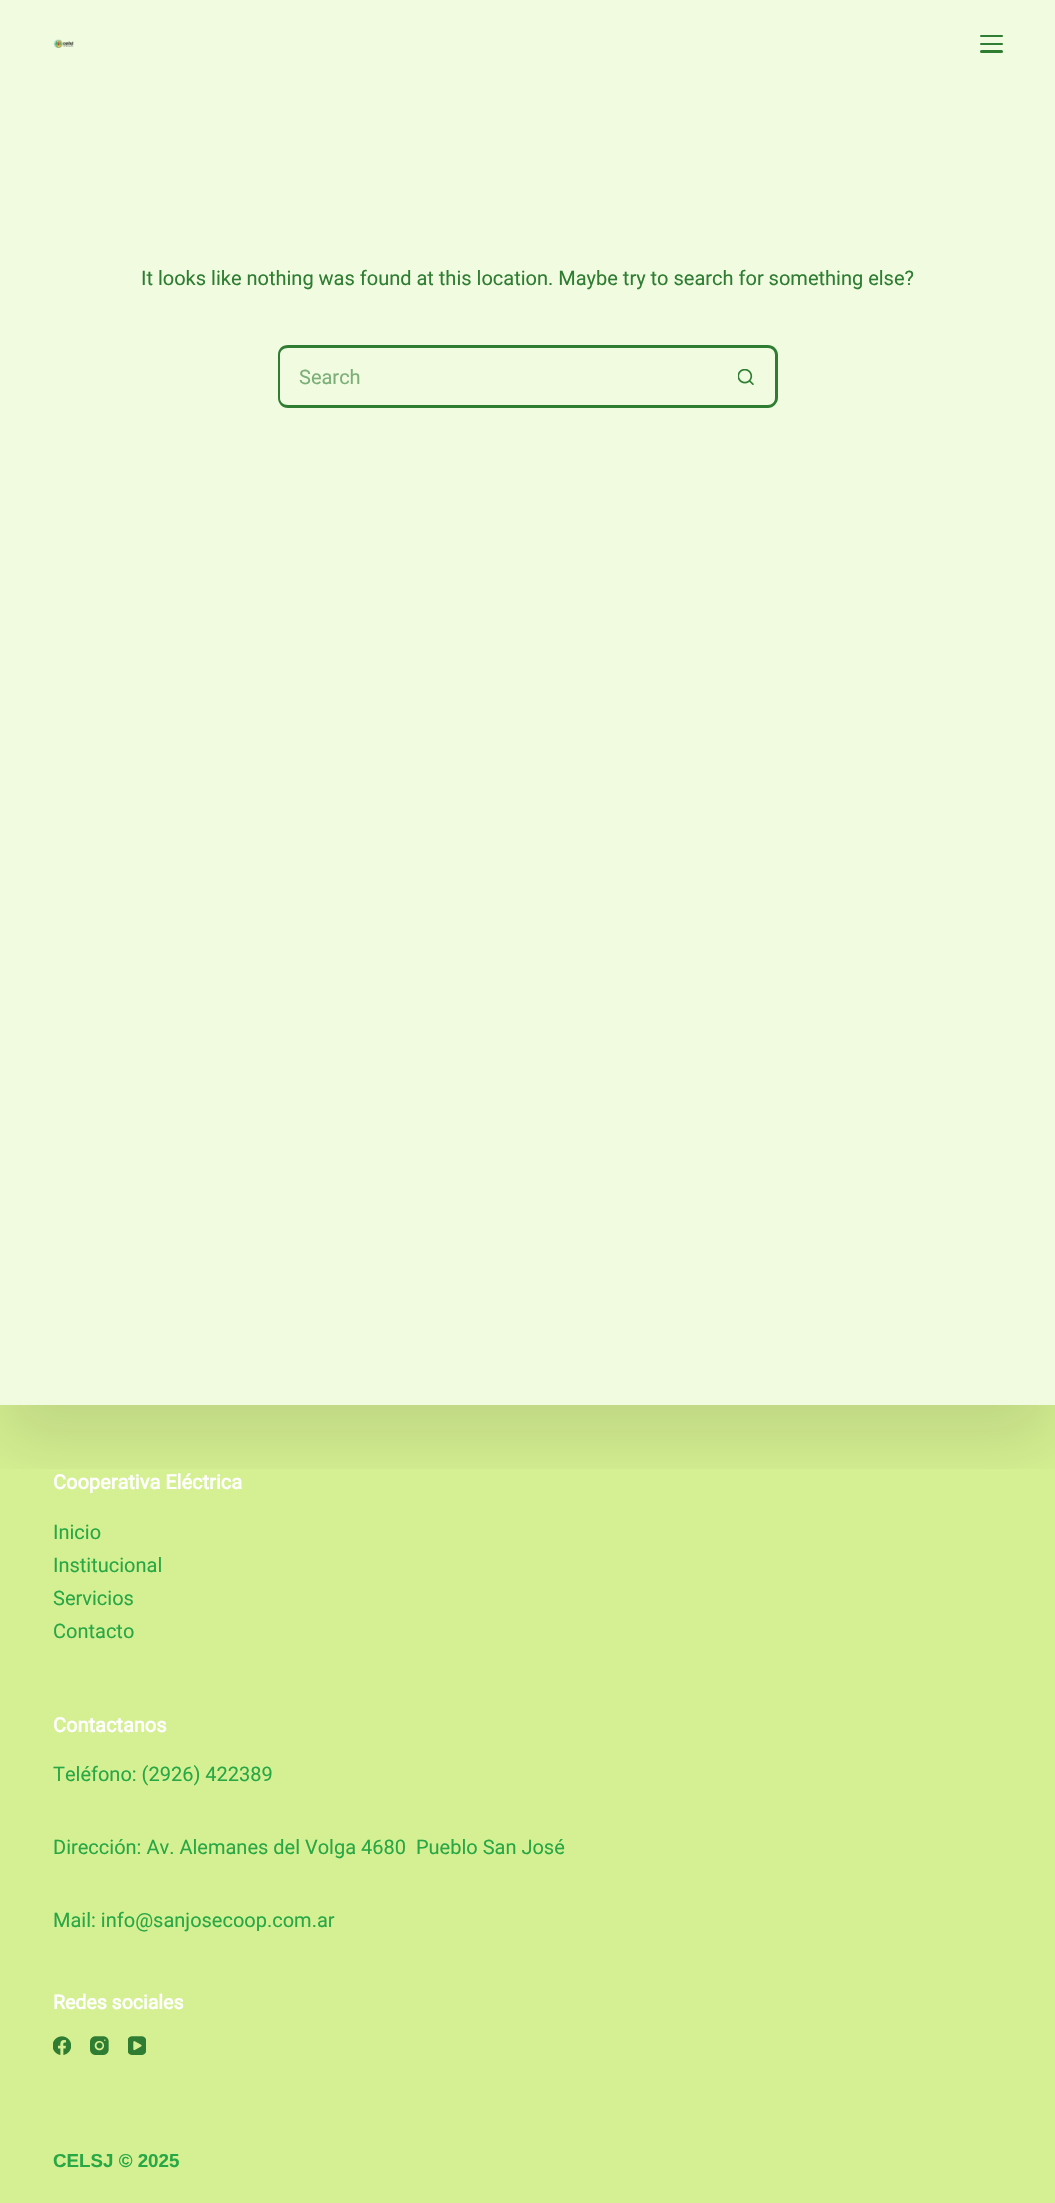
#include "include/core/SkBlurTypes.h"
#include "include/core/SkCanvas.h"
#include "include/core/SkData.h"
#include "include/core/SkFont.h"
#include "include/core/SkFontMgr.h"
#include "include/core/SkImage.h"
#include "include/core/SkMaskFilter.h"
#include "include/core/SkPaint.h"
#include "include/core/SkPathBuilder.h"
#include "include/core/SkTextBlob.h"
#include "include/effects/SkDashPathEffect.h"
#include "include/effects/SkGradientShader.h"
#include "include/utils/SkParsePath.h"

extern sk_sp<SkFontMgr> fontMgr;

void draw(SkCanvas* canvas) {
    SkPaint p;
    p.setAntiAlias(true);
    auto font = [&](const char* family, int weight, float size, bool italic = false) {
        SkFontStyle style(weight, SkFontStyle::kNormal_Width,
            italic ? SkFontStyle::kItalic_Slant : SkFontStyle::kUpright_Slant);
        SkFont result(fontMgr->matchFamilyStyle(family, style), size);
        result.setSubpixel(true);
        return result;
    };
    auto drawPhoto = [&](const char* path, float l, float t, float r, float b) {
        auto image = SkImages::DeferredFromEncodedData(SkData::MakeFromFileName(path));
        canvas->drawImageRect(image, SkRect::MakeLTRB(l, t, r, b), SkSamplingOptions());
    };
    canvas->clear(0xFFF0FBE0);
    p.setColor(0xFFD5F092);
    canvas->drawRect(SkRect::MakeLTRB(0, 1405, 1055, 2203), p);
    canvas->save();
    canvas->clipRect(SkRect::MakeLTRB(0, 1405, 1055, 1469));
    p.setColor(0x1A000000);
    p.setMaskFilter(SkMaskFilter::MakeBlur(kNormal_SkBlurStyle, 31));
    canvas->drawRect(SkRect::MakeLTRB(0, 125, 1055, 1443), p);
    p.setMaskFilter(nullptr);
    canvas->restore();
    p.setColor(0xFFF0FBE0);
    canvas->drawRect(SkRect::MakeLTRB(64, 86, 991, 87), p);
    drawPhoto("media/1.png", 53, 39, 74, 48);
    p.setColor(0xFF2E7D32);
    canvas->drawRoundRect(SkRect::MakeLTRB(980, 35, 1003, 37), 1, 1, p);
    canvas->drawRoundRect(SkRect::MakeLTRB(980, 43, 1003, 45), 1, 1, p);
    canvas->drawRoundRect(SkRect::MakeLTRB(980, 50, 1003, 53), 1.5f, 1.5f, p);
    auto font1 = font("Roboto", 400, 20);
    canvas->drawString("It looks like nothing was found at this location. Maybe try to search for something else?", 141, 285, font1, p);
    canvas->drawPath(SkPathBuilder(SkPathFillType::kEvenOdd).moveTo(288, 345).lineTo(715, 345).lineTo(715, 408).lineTo(288, 408).cubicTo(282, 408, 278, 403, 278, 398).lineTo(278, 355).cubicTo(278, 349, 282, 345, 288, 345).close().moveTo(288, 348).lineTo(715, 348).lineTo(715, 405).lineTo(288, 405).cubicTo(283, 405, 280, 402, 280, 398).lineTo(280, 355).cubicTo(280, 351, 283, 348, 288, 348).close().detach(), p);
    p.setColor(0xFF7CAF78);
    canvas->drawString("Search", 299, 384, font1, p);
    p.setColor(0xFF2E7D32);
    canvas->drawPath(SkPathBuilder(SkPathFillType::kEvenOdd).moveTo(715, 345).lineTo(768, 345).cubicTo(773, 345, 778, 349, 778, 355).lineTo(778, 398).cubicTo(778, 403, 773, 408, 768, 408).lineTo(715, 408).close().moveTo(715, 348).lineTo(768, 348).cubicTo(772, 348, 775, 351, 775, 355).lineTo(775, 398).cubicTo(775, 402, 772, 405, 768, 405).lineTo(715, 405).close().detach(), p);
    drawPhoto("media/2.png", 738, 369, 754, 385);
    auto font2 = font("Roboto", 700, 20);
    p.setColor(0xFFFFFFFF);
    canvas->drawString("Cooperativa Eléctrica", 53, 1489, font2, p);
    p.setColor(0xFF28A745);
    {
        const struct { const char* s; float x, y; } items[] = {
            {"Inicio", 53, 1539},
            {"Institucional", 53, 1572},
            {"Servicios", 53, 1605},
            {"Contacto", 53, 1638},
        };
        for (auto [s, x, y] : items) {
            canvas->drawString(s, x, y, font1, p);
        }
    }
    p.setColor(0xFFFFFFFF);
    canvas->drawString("Contactanos", 53, 1732, font2, p);
    p.setColor(0xFF28A745);
    {
        const struct { const char* s; float x, y; } items[] = {
            {"Teléfono: (2926) 422389", 53, 1781},
            {"Dirección: Av. Alemanes del Volga 4680  Pueblo San José", 53, 1854},
            {"Mail: info@sanjosecoop.com.ar", 53, 1927},
        };
        for (auto [s, x, y] : items) {
            canvas->drawString(s, x, y, font1, p);
        }
    }
    auto font3 = font("Roboto", 700, 19.5f);
    p.setColor(0xFFFFFFFF);
    canvas->drawString("Redes sociales", 53, 2009, font3, p);
    drawPhoto("media/3.png", 53, 2036, 71, 2055);
    drawPhoto("media/4.png", 90, 2036, 109, 2055);
    drawPhoto("media/5.png", 128, 2036, 146, 2055);
    auto font4 = font("Liberation Sans", 700, 18.75f);
    p.setColor(0xFF28A745);
    canvas->drawString("CELSJ © 2025", 53, 2167, font4, p);
}
